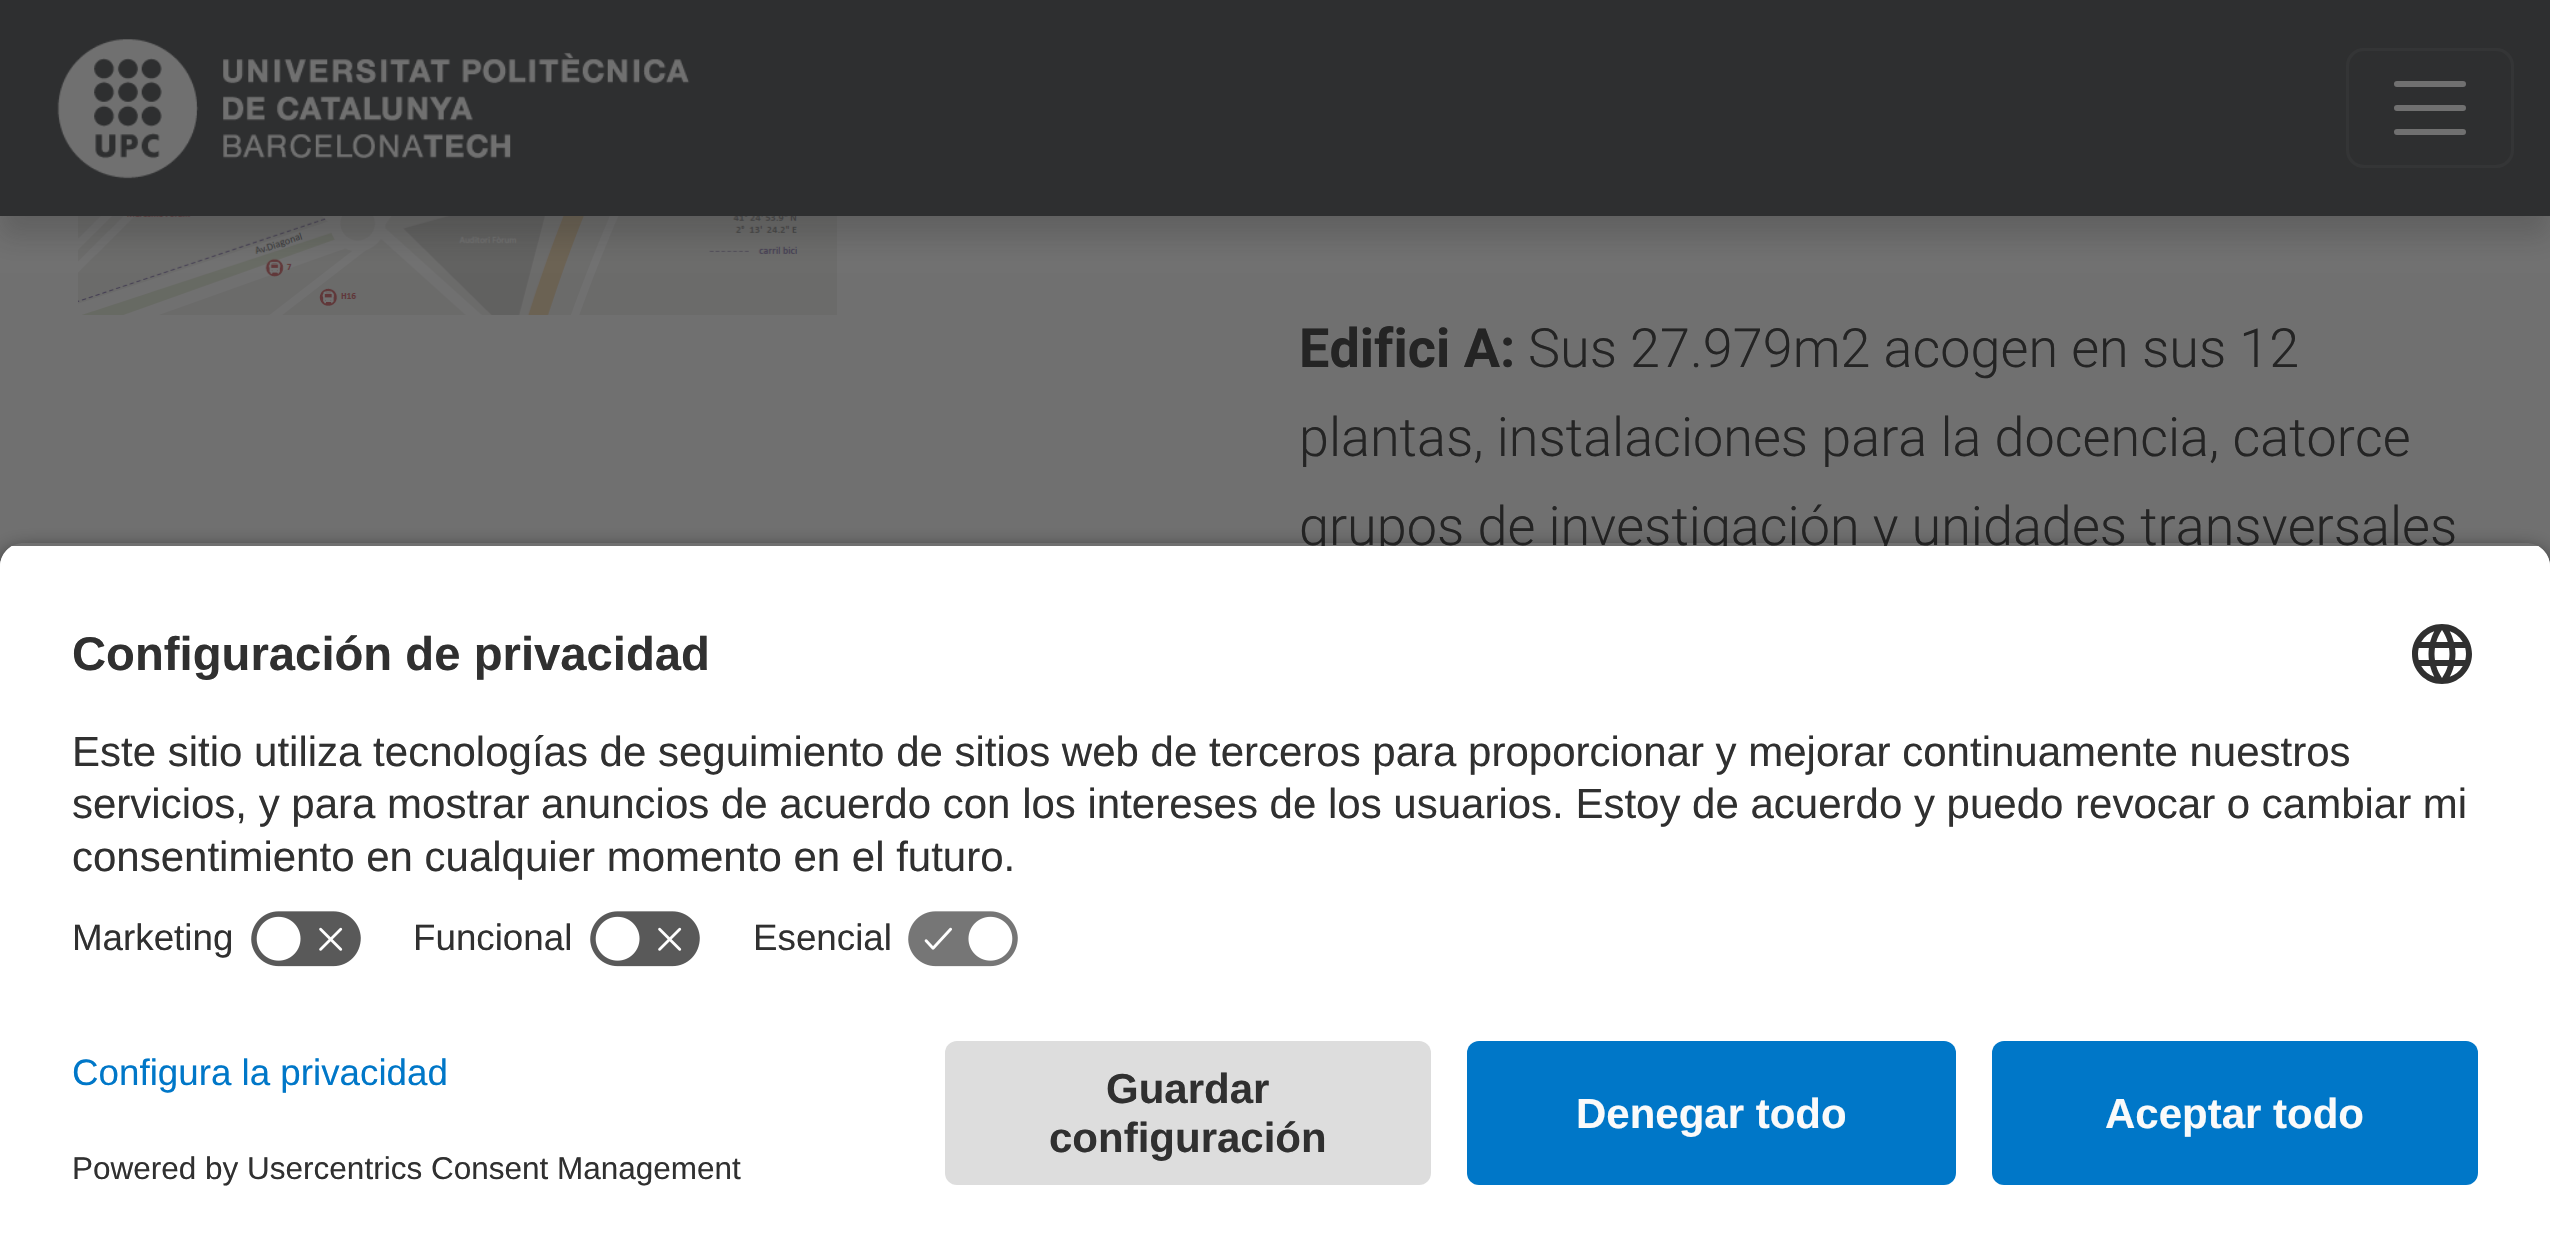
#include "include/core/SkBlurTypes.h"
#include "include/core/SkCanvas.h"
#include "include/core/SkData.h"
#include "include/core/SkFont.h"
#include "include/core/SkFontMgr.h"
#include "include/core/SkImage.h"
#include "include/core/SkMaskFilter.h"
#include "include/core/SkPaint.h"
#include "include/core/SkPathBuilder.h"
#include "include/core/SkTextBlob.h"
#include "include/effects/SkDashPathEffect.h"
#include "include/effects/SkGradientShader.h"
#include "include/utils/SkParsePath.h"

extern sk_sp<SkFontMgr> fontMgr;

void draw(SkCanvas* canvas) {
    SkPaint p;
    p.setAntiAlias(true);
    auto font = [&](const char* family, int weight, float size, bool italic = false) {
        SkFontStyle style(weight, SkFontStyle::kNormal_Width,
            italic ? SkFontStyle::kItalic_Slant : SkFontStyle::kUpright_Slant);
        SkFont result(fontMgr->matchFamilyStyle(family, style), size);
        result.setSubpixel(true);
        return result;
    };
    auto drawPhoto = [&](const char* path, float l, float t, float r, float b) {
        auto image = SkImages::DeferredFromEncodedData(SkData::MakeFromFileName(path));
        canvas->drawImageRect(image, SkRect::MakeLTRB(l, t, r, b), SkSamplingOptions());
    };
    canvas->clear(0xFF707070);
    drawPhoto("media/2.png", 78, 216, 837, 315);
    p.setColor(0x33242424);
    p.setMaskFilter(SkMaskFilter::MakeBlur(kNormal_SkBlurStyle, 12));
    canvas->drawRect(SkRect::MakeLTRB(0, 21, 2550, 237), p);
    p.setMaskFilter(nullptr);
    p.setColor(0xFF2E2F30);
    canvas->drawRect(SkRect::MakeLTRB(0, 0, 2550, 216), p);
    drawPhoto("media/1.png", 57, 39, 690, 179);
    p.setStyle(SkPaint::kStroke_Style);
    p.setStrokeWidth(3);
    p.setColor(0xFF343536);
    canvas->drawRoundRect(SkRect::MakeLTRB(2347.5f, 49.5f, 2512.5f, 166.5f), 16.5f, 16.5f, p);
    p.setStrokeWidth(6);
    p.setStrokeCap(SkPaint::kRound_Cap);
    p.setColor(0xFF707070);
    canvas->drawPath(SkPathBuilder().moveTo(2397, 84).lineTo(2463, 84).moveTo(2397, 108).lineTo(2463, 108).moveTo(2397, 132).lineTo(2463, 132).detach(), p);
    auto font1 = font("Roboto", 700, 54);
    p.setStyle(SkPaint::kFill_Style);
    p.setColor(0xFF242424);
    canvas->drawString("Edifici A:", 1299, 367, font1, p);
    auto font2 = font("Roboto", 300, 54);
    {
        const struct { const char* s; float x, y; } items[] = {
            {"Sus 27.979m2 acogen en sus 12", 1528, 367},
            {"plantas, instalaciones para la docencia, catorce", 1299, 456},
            {"grupos de investigación y unidades transversales", 1299, 545},
        };
        for (auto [s, x, y] : items) {
            canvas->drawString(s, x, y, font2, p);
        }
    }
    canvas->save();
    canvas->clipPath(SkPathBuilder(SkPathFillType::kEvenOdd).moveTo(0, 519).lineTo(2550, 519).lineTo(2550, 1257).lineTo(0, 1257).close().moveTo(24, 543).lineTo(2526, 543).cubicTo(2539.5f, 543, 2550, 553.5f, 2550, 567).lineTo(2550, 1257).lineTo(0, 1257).lineTo(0, 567).cubicTo(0, 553.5f, 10.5f, 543, 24, 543).close().detach(), true);
    p.setColor(0xCC000000);
    p.setMaskFilter(SkMaskFilter::MakeBlur(kNormal_SkBlurStyle, 10.5f));
    canvas->drawRoundRect(SkRect::MakeLTRB(0, 552, 2550, 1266), 24, 24, p);
    p.setMaskFilter(nullptr);
    canvas->restore();
    canvas->save();
    canvas->clipPath(SkPathBuilder().moveTo(24, 543).lineTo(2526, 543).cubicTo(2539.5f, 543, 2550, 553.5f, 2550, 567).lineTo(2550, 1017).lineTo(0, 1017).lineTo(0, 567).cubicTo(0, 553.5f, 10.5f, 543, 24, 543).close().detach(), true);
    p.setColor(0xFFFFFFFF);
    canvas->drawRect(SkRect::MakeLTRB(0, 546, 2550, 1017), p);
    canvas->drawRect(SkRect::MakeLTRB(0, 546, 2550, 897), p);
    canvas->restore();
    auto font3 = font("Liberation Sans", 700, 47.25f);
    p.setColor(0xFF303030);
    canvas->drawString("Configuración de privacidad", 72, 670, font3, p);
    drawPhoto("media/3.png", 2412, 624, 2472, 684);
    auto font4 = font("Liberation Sans", 400, 42);
    {
        const struct { const char* s; float x, y; } items[] = {
            {"Este sitio utiliza tecnologías de seguimiento de sitios web de terceros para proporcionar y mejorar continuamente nuestros", 72, 766},
            {"servicios, y para mostrar anuncios de acuerdo con los intereses de los usuarios. Estoy de acuerdo y puedo revocar o cambiar mi", 72, 818},
            {"consentimiento en cualquier momento en el futuro.", 72, 871},
        };
        for (auto [s, x, y] : items) {
            canvas->drawString(s, x, y, font4, p);
        }
    }
    auto font5 = font("Liberation Sans", 400, 36.75f);
    canvas->drawString("Marketing", 72, 950, font5, p);
    drawPhoto("media/4.png", 251, 911, 361, 967);
    canvas->drawString("Funcional", 413, 950, font5, p);
    drawPhoto("media/4.png", 590, 911, 700, 967);
    canvas->drawString("Esencial", 753, 950, font5, p);
    drawPhoto("media/5.png", 908, 911, 1018, 967);
    p.setColor(0xFFFFFFFF);
    canvas->drawRect(SkRect::MakeLTRB(0, 1017, 2550, 1257), p);
    p.setColor(0xFF0077C8);
    canvas->drawString("Configura la privacidad", 72, 1085, font5, p);
    auto font6 = font("Liberation Sans", 400, 31.5f);
    p.setColor(0xFF303030);
    canvas->drawString("Powered by Usercentrics Consent Management", 72, 1179, font6, p);
    p.setColor(0xFFDDDDDD);
    canvas->drawRoundRect(SkRect::MakeLTRB(945, 1041, 1431, 1185), 12, 12, p);
    auto font7 = font("Liberation Sans", 700, 42);
    p.setColor(0xFF303030);
    canvas->drawString("Guardar", 1106, 1103, font7, p);
    canvas->drawString("configuración", 1049, 1152, font7, p);
    p.setColor(0xFF0077C8);
    canvas->drawRoundRect(SkRect::MakeLTRB(1467, 1041, 1956, 1185), 12, 12, p);
    p.setColor(0xFFFAFAFA);
    canvas->drawString("Denegar todo", 1576, 1128, font7, p);
    p.setColor(0xFF0077C8);
    canvas->drawRoundRect(SkRect::MakeLTRB(1992, 1041, 2478, 1185), 12, 12, p);
    p.setColor(0xFFFAFAFA);
    canvas->drawString("Aceptar todo", 2105, 1128, font7, p);
}
